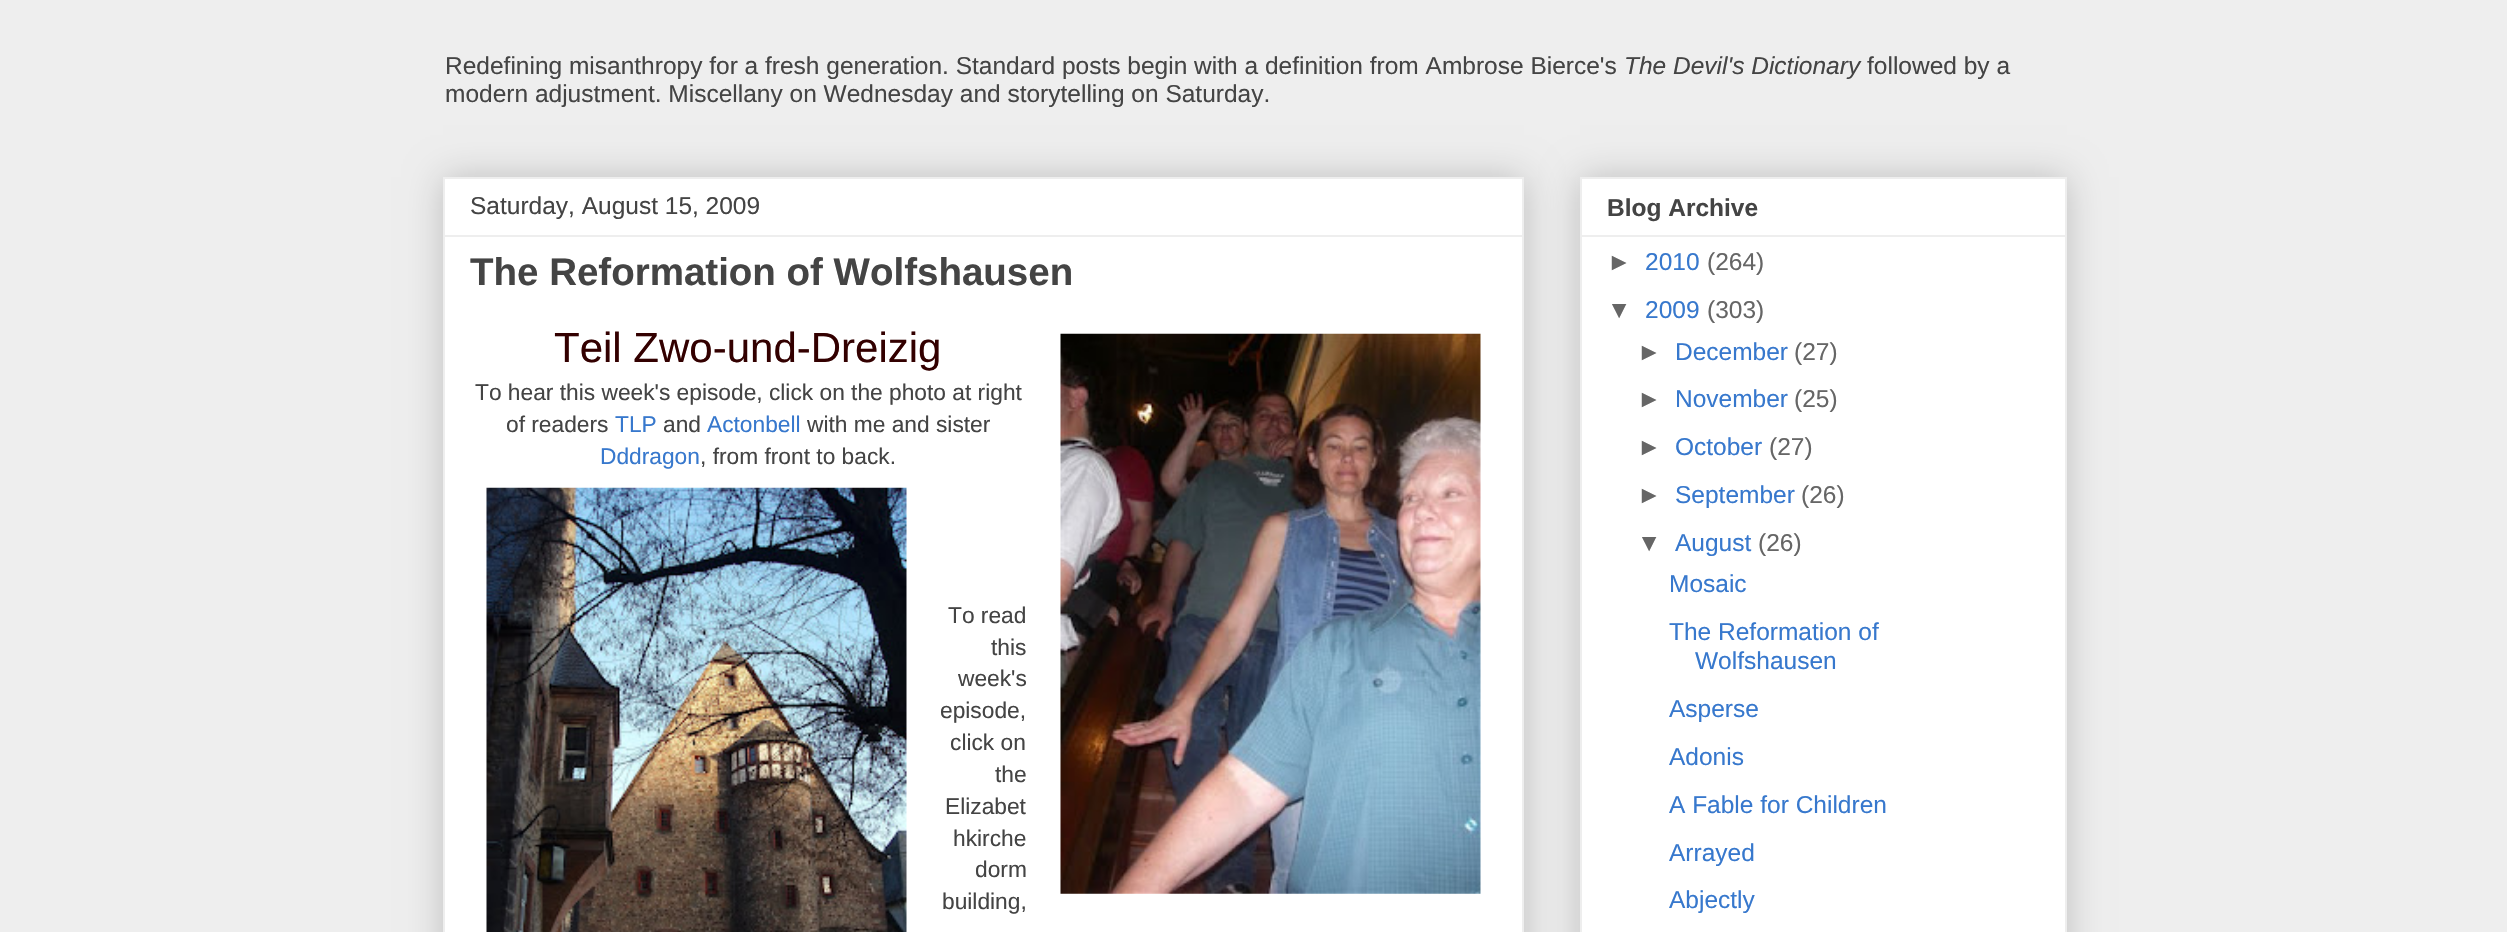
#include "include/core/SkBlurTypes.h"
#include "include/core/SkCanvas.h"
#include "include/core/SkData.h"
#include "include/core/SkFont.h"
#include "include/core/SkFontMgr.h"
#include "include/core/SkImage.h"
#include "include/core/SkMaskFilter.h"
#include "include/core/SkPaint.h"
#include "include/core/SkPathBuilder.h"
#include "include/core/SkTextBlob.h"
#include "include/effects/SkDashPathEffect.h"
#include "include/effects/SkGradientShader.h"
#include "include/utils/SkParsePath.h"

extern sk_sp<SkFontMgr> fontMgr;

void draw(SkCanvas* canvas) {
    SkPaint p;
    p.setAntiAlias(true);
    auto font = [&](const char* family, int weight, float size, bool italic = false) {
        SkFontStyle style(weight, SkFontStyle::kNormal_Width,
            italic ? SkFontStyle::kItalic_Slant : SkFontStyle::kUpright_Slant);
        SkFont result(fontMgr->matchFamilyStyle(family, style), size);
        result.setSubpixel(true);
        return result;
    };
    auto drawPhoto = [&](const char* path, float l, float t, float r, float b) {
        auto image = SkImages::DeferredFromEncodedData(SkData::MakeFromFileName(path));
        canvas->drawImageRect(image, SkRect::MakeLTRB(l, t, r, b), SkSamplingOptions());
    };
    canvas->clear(0xFFEEEEEE);
    auto font1 = font("Liberation Sans", 400, 24.5f);
    p.setColor(0xFF444444);
    canvas->drawString("Redefining misanthropy for a fresh generation. Standard posts begin with a definition from Ambrose Bierce's", 445, 74, font1, p);
    auto font2 = font("Liberation Sans", 400, 24.5f, true);
    canvas->drawString("The Devil's Dictionary", 1624, 74, font2, p);
    canvas->drawString("followed by a", 1867, 74, font1, p);
    canvas->drawString("modern adjustment. Miscellany on Wednesday and storytelling on Saturday.", 445, 102, font1, p);
    p.setColor(0x33000000);
    p.setMaskFilter(SkMaskFilter::MakeBlur(kNormal_SkBlurStyle, 17.5f));
    canvas->drawRect(SkRect::MakeLTRB(443, 177, 1524, 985), p);
    p.setMaskFilter(nullptr);
    p.setColor(0xFFFFFFFF);
    canvas->drawRect(SkRect::MakeLTRB(444, 178, 1523, 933), p);
    p.setStyle(SkPaint::kStroke_Style);
    p.setStrokeWidth(2);
    p.setColor(0xFFEEEEEE);
    canvas->drawRect(SkRect::MakeLTRB(444, 178, 1523, 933), p);
    p.setStyle(SkPaint::kFill_Style);
    p.setColor(0xFF444444);
    canvas->drawString("Saturday, August 15, 2009", 470, 214, font1, p);
    p.setColor(0xFFEEEEEE);
    canvas->drawRect(SkRect::MakeLTRB(445, 235, 1523, 237), p);
    auto font3 = font("Liberation Sans", 700, 38.5f);
    p.setColor(0xFF444444);
    canvas->drawString("The Reformation of Wolfshausen", 470, 285, font3, p);
    auto font4 = font("Liberation Sans", 400, 42);
    p.setColor(0xFF330000);
    canvas->drawString("Teil Zwo-und-Dreizig", 554, 362, font4, p);
    auto font5 = font("Liberation Sans", 400, 22.75f);
    p.setColor(0xFF444444);
    canvas->drawString("To hear this week's episode, click on the photo at right", 475, 400, font5, p);
    canvas->drawString("of readers", 506, 432, font5, p);
    p.setColor(0xFF3778CD);
    canvas->drawString("TLP", 615, 432, font5, p);
    p.setColor(0xFF444444);
    canvas->drawString("and", 663, 432, font5, p);
    p.setColor(0xFF3778CD);
    canvas->drawString("Actonbell", 707, 432, font5, p);
    p.setColor(0xFF444444);
    canvas->drawString("with me and sister", 807, 432, font5, p);
    p.setColor(0xFF3778CD);
    canvas->drawString("Dddragon", 600, 464, font5, p);
    p.setColor(0xFF444444);
    canvas->drawString(", from front to back.", 700, 464, font5, p);
    drawPhoto("media/1.png", 486, 487, 907, 932);
    {
        const struct { const char* s; float x, y; } items[] = {
            {"To read", 948, 623},
            {"this", 991, 655},
            {"week's", 958, 686},
            {"episode,", 940, 718},
            {"click on", 950, 750},
            {"the", 995, 782},
            {"Elizabet", 945, 814},
            {"hkirche", 953, 846},
            {"dorm", 975, 877},
            {"building,", 942, 909},
        };
        for (auto [s, x, y] : items) {
            canvas->drawString(s, x, y, font5, p);
        }
    }
    drawPhoto("media/2.png", 1060, 333, 1481, 894);
    p.setColor(0x33000000);
    p.setMaskFilter(SkMaskFilter::MakeBlur(kNormal_SkBlurStyle, 17.5f));
    canvas->drawRect(SkRect::MakeLTRB(1580, 177, 2067, 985), p);
    p.setMaskFilter(nullptr);
    p.setColor(0xFFFFFFFF);
    canvas->drawRect(SkRect::MakeLTRB(1581, 178, 2066, 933), p);
    p.setStyle(SkPaint::kStroke_Style);
    p.setColor(0xFFEEEEEE);
    canvas->drawRect(SkRect::MakeLTRB(1581, 178, 2066, 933), p);
    auto font6 = font("Liberation Sans", 700, 24.5f);
    p.setStyle(SkPaint::kFill_Style);
    p.setColor(0xFF444444);
    canvas->drawString("Blog Archive", 1607, 216, font6, p);
    p.setColor(0xFFEEEEEE);
    canvas->drawRect(SkRect::MakeLTRB(1582, 235, 2065, 237), p);
    p.setColor(0xFF666666);
    canvas->drawString("►", 1607, 270, font1, p);
    p.setColor(0xFF3778CD);
    canvas->drawString("2010", 1645, 270, font1, p);
    p.setColor(0xFF666666);
    canvas->drawString("(264)", 1707, 270, font1, p);
    canvas->drawString("▼", 1607, 318, font1, p);
    p.setColor(0xFF3778CD);
    canvas->drawString("2009", 1645, 318, font1, p);
    p.setColor(0xFF666666);
    canvas->drawString("(303)", 1707, 318, font1, p);
    canvas->drawString("►", 1637, 360, font1, p);
    p.setColor(0xFF3778CD);
    canvas->drawString("December", 1675, 360, font1, p);
    p.setColor(0xFF666666);
    canvas->drawString("(27)", 1794, 360, font1, p);
    canvas->drawString("►", 1637, 407, font1, p);
    p.setColor(0xFF3778CD);
    canvas->drawString("November", 1675, 407, font1, p);
    p.setColor(0xFF666666);
    canvas->drawString("(25)", 1794, 407, font1, p);
    canvas->drawString("►", 1637, 455, font1, p);
    p.setColor(0xFF3778CD);
    canvas->drawString("October", 1675, 455, font1, p);
    p.setColor(0xFF666666);
    canvas->drawString("(27)", 1769, 455, font1, p);
    canvas->drawString("►", 1637, 503, font1, p);
    p.setColor(0xFF3778CD);
    canvas->drawString("September", 1675, 503, font1, p);
    p.setColor(0xFF666666);
    canvas->drawString("(26)", 1801, 503, font1, p);
    canvas->drawString("▼", 1637, 551, font1, p);
    p.setColor(0xFF3778CD);
    canvas->drawString("August", 1675, 551, font1, p);
    p.setColor(0xFF666666);
    canvas->drawString("(26)", 1758, 551, font1, p);
    p.setColor(0xFF3778CD);
    {
        const struct { const char* s; float x, y; } items[] = {
            {"Mosaic", 1669, 592},
            {"The Reformation of", 1669, 640},
            {"Wolfshausen", 1695, 669},
            {"Asperse", 1669, 717},
            {"Adonis", 1669, 765},
            {"A Fable for Children", 1669, 813},
            {"Arrayed", 1669, 861},
            {"Abjectly", 1669, 908},
        };
        for (auto [s, x, y] : items) {
            canvas->drawString(s, x, y, font1, p);
        }
    }
}
